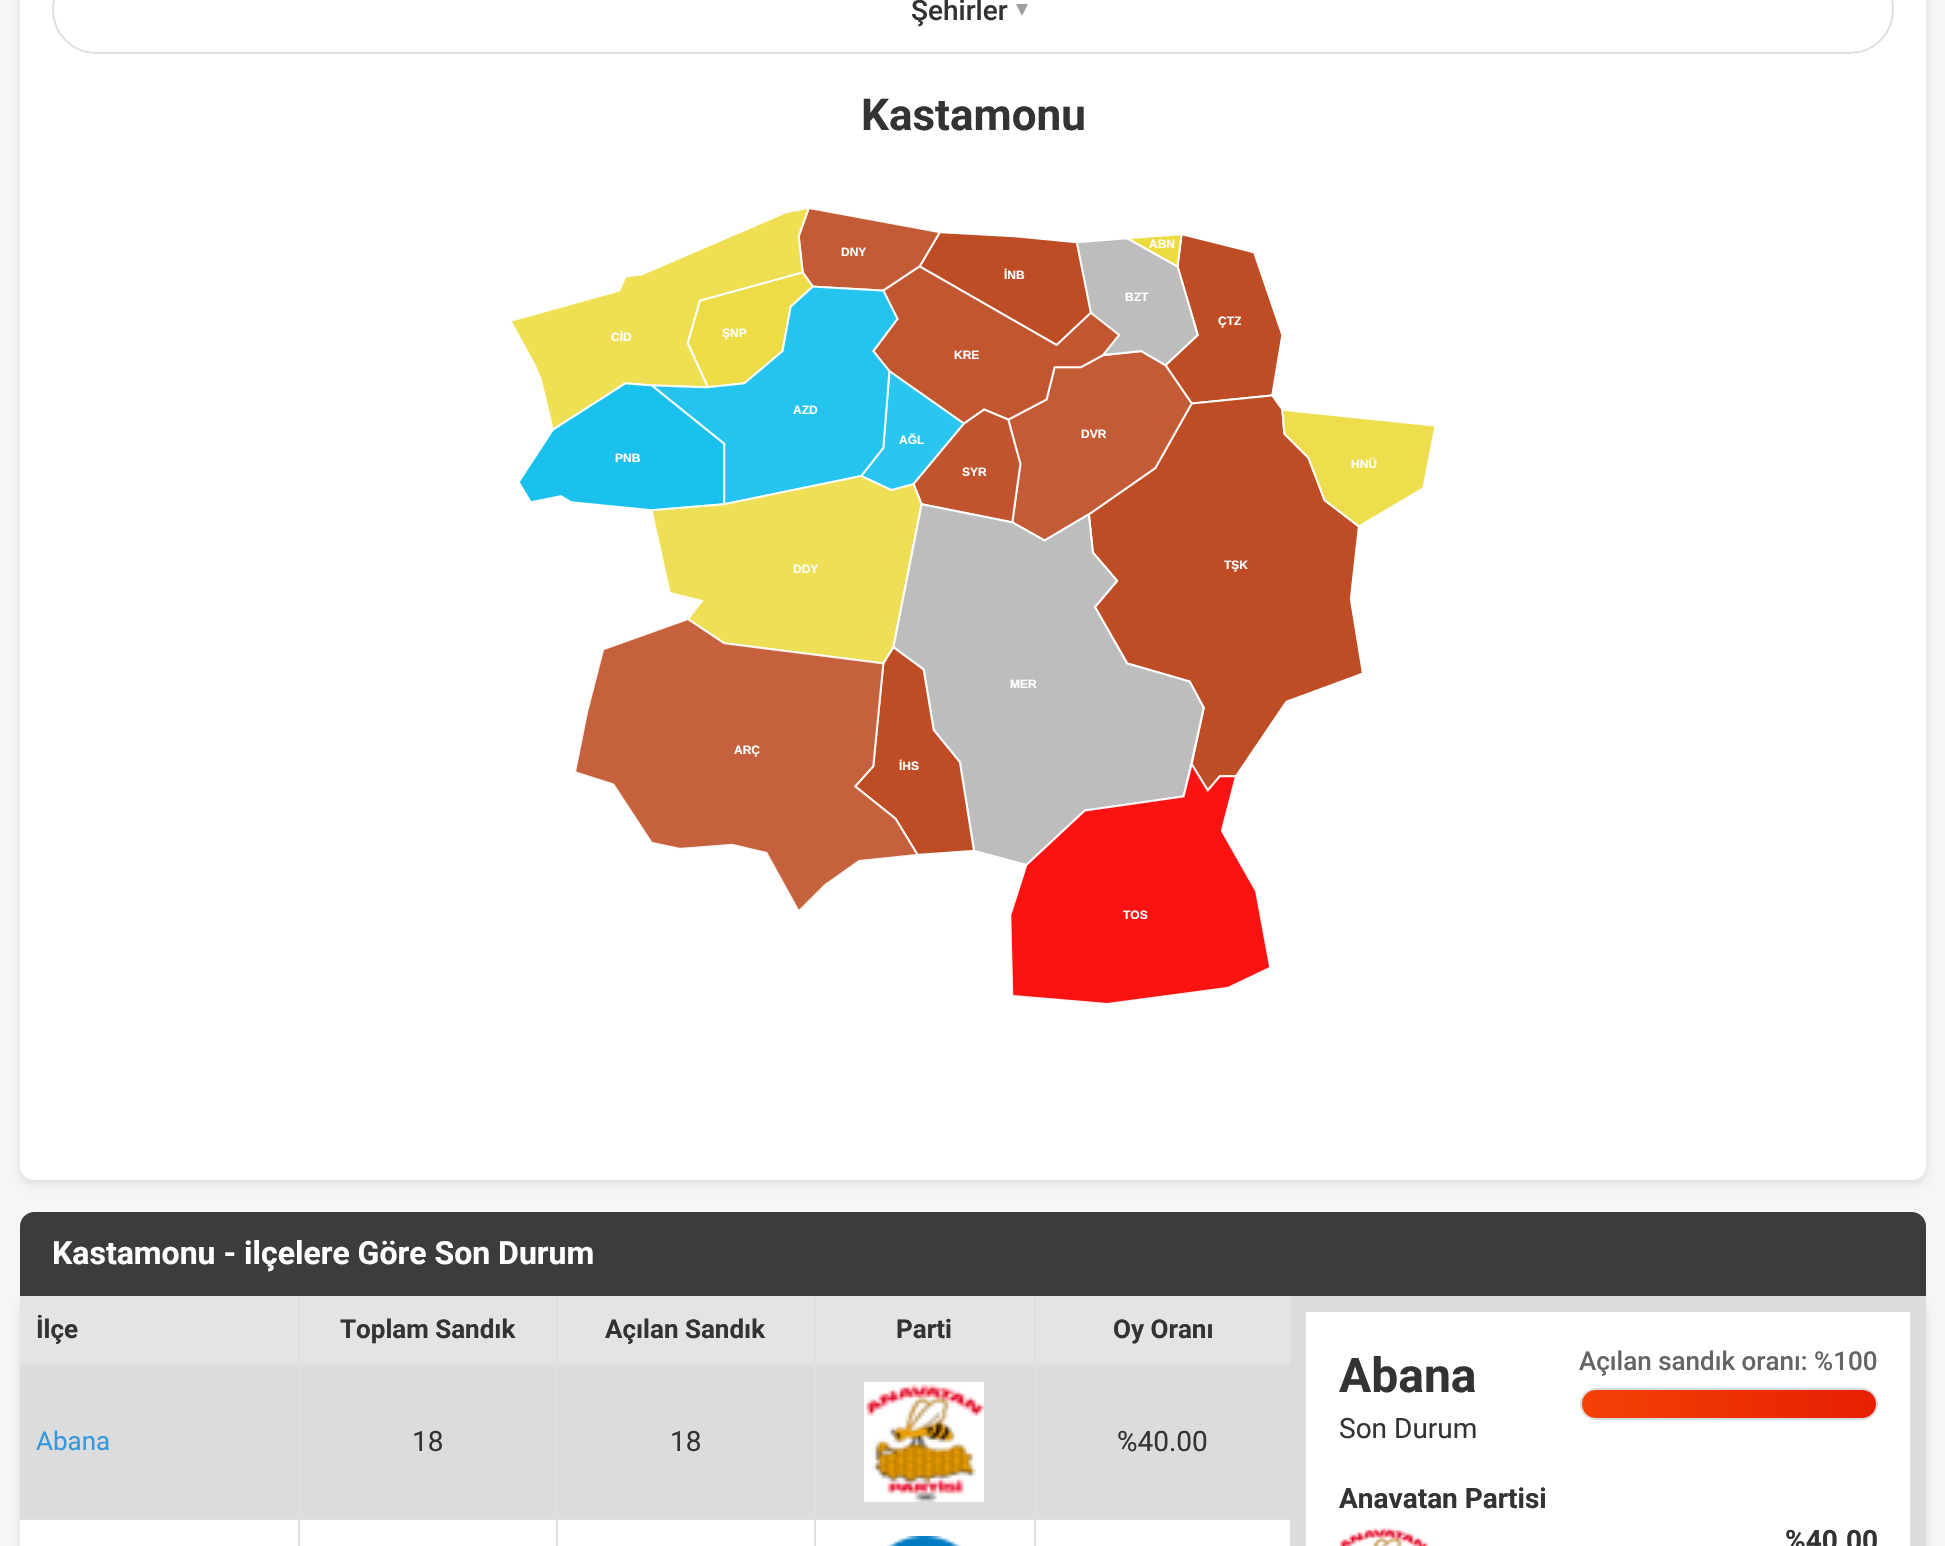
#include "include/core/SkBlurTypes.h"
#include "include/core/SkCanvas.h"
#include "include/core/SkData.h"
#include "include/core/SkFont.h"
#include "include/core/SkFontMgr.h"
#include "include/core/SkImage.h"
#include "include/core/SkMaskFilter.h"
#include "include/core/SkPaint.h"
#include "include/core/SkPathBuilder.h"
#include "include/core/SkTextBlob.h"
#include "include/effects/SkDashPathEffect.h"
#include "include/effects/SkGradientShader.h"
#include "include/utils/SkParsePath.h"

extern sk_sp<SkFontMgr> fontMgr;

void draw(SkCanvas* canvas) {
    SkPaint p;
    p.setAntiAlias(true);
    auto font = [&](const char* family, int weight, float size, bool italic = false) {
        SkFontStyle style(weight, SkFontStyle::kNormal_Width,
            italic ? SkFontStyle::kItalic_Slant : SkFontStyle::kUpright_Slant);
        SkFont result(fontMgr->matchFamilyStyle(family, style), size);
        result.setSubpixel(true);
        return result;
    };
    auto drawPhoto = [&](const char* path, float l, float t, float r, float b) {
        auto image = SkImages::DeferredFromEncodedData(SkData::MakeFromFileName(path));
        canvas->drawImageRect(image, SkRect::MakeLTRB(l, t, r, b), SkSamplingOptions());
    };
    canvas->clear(0xFFF6F6F6);
    p.setColor(0x1A000000);
    p.setMaskFilter(SkMaskFilter::MakeBlur(kNormal_SkBlurStyle, 4));
    canvas->drawRoundRect(SkRect::MakeLTRB(20, -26, 1926, 1184), 14, 14, p);
    p.setMaskFilter(nullptr);
    p.setColor(0xFFFFFFFF);
    canvas->drawRoundRect(SkRect::MakeLTRB(20, -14, 1926, 1180), 14, 14, p);
    p.setStyle(SkPaint::kStroke_Style);
    p.setStrokeWidth(2);
    p.setColor(0xFFDFDFDF);
    canvas->drawRoundRect(SkRect::MakeLTRB(53, -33, 1893, 53), 43, 43, p);
    auto font1 = font("Roboto", 500, 28);
    p.setStyle(SkPaint::kFill_Style);
    p.setColor(0xFF333333);
    canvas->drawString("Şehirler", 911, 20, font1, p);
    p.setColor(0xFF9E9E9E);
    canvas->drawPath(SkPathBuilder().moveTo(1022, 16).lineTo(1016, 4).lineTo(1028, 4).close().detach(), p);
    auto font2 = font("Roboto", 700, 44);
    p.setColor(0xFF333333);
    canvas->drawString("Kastamonu", 861, 130, font2, p);
    drawPhoto("media/1.png", 511, 208, 1435, 1004);
    auto font3 = font("Liberation Sans", 700, 12);
    p.setColor(0xFFFFFFFF);
    {
        const struct { const char* s; float x, y; } items[] = {
            {"ABN", 1149, 248},
            {"DNY", 841, 256},
            {"İNB", 1004, 279},
            {"BZT", 1125, 301},
            {"ÇTZ", 1218, 325},
            {"CİD", 611, 341},
            {"ŞNP", 722, 337},
            {"KRE", 954, 359},
            {"AZD", 793, 414},
            {"AĞL", 899, 444},
            {"DVR", 1081, 438},
            {"PNB", 615, 462},
            {"HNÜ", 1351, 468},
            {"SYR", 962, 476},
            {"DDY", 793, 573},
            {"TŞK", 1224, 569},
            {"MER", 1010, 688},
            {"ARÇ", 734, 754},
            {"İHS", 899, 770},
            {"TOS", 1123, 919},
        };
        for (auto [s, x, y] : items) {
            canvas->drawString(s, x, y, font3, p);
        }
    }
    p.setColor(0xFF3C3C3C);
    canvas->drawPath(SkPathBuilder().moveTo(34, 1212).lineTo(1912, 1212).cubicTo(1919.5f, 1212, 1926, 1218.5f, 1926, 1226).lineTo(1926, 1296).lineTo(20, 1296).lineTo(20, 1226).cubicTo(20, 1218.5f, 26.5f, 1212, 34, 1212).close().detach(), p);
    auto font4 = font("Roboto", 700, 32);
    p.setColor(0xFFFFFFFF);
    canvas->drawString("Kastamonu - ilçelere Göre Son Durum", 52, 1264, font4, p);
    p.setColor(0x1A000000);
    p.setMaskFilter(SkMaskFilter::MakeBlur(kNormal_SkBlurStyle, 4));
    canvas->drawRoundRect(SkRect::MakeLTRB(20, 1300, 1926, 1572), 14, 14, p);
    p.setMaskFilter(nullptr);
    {
        const struct { float l, t, r, b; SkColor color; } items[] = {
            {20, 1312, 1910, 1546, 0xFFFFFFFF},
            {20, 1296, 1290, 1364, 0xFFE4E4E4},
            {20, 1364, 1290, 1366, 0xFFDFDFDF},
            {298, 1296, 300, 1364, 0xFFDFDFDF},
        };
        for (auto [l, t, r, b, color] : items) {
            p.setColor(color);
            canvas->drawRect(SkRect::MakeLTRB(l, t, r, b), p);
        }
    }
    auto font5 = font("Roboto", 700, 26);
    p.setColor(0xFF333333);
    canvas->drawString("İlçe", 36, 1338, font5, p);
    p.setColor(0xFFDFDFDF);
    canvas->drawRect(SkRect::MakeLTRB(556, 1296, 558, 1364), p);
    p.setColor(0xFF333333);
    canvas->drawString("Toplam Sandık", 340, 1338, font5, p);
    p.setColor(0xFFDFDFDF);
    canvas->drawRect(SkRect::MakeLTRB(814, 1296, 816, 1364), p);
    p.setColor(0xFF333333);
    canvas->drawString("Açılan Sandık", 605, 1338, font5, p);
    p.setColor(0xFFDFDFDF);
    canvas->drawRect(SkRect::MakeLTRB(1034, 1296, 1036, 1364), p);
    p.setColor(0xFF333333);
    canvas->drawString("Parti", 896, 1338, font5, p);
    canvas->drawString("Oy Oranı", 1113, 1338, font5, p);
    {
        const struct { float l, t, r, b; SkColor color; } items[] = {
            {20, 1366, 1290, 1518, 0xFFDCDCDC},
            {20, 1518, 1290, 1520, 0xFFDFDFDF},
            {298, 1366, 300, 1518, 0xFFDFDFDF},
        };
        for (auto [l, t, r, b, color] : items) {
            p.setColor(color);
            canvas->drawRect(SkRect::MakeLTRB(l, t, r, b), p);
        }
    }
    auto font6 = font("Roboto", 400, 26);
    p.setColor(0xFF3398DC);
    canvas->drawString("Abana", 36, 1450, font6, p);
    p.setColor(0xFFDFDFDF);
    canvas->drawRect(SkRect::MakeLTRB(556, 1366, 558, 1518), p);
    auto font7 = font("Roboto", 400, 28);
    p.setColor(0xFF333333);
    canvas->drawString("18", 412, 1451, font7, p);
    p.setColor(0xFFDFDFDF);
    canvas->drawRect(SkRect::MakeLTRB(814, 1366, 816, 1518), p);
    p.setColor(0xFF333333);
    canvas->drawString("18", 670, 1451, font7, p);
    p.setColor(0xFFDFDFDF);
    canvas->drawRect(SkRect::MakeLTRB(1034, 1366, 1036, 1518), p);
    drawPhoto("media/2.png", 864, 1382, 984, 1502);
    p.setColor(0xFF333333);
    canvas->drawString("%40.00", 1117, 1451, font7, p);
    {
        const struct { float l, t, r, b; SkColor color; } items[] = {
            {298, 1520, 300, 1546, 0xFFDFDFDF},
            {556, 1520, 558, 1546, 0xFFDFDFDF},
            {814, 1520, 816, 1546, 0xFFDFDFDF},
            {1034, 1520, 1036, 1546, 0xFFDFDFDF},
        };
        for (auto [l, t, r, b, color] : items) {
            p.setColor(color);
            canvas->drawRect(SkRect::MakeLTRB(l, t, r, b), p);
        }
    }
    drawPhoto("media/3.png", 887, 1536, 961, 1546);
    p.setColor(0xFFDCDCDC);
    canvas->drawPath(SkPathBuilder(SkPathFillType::kEvenOdd).moveTo(1290, 1296).lineTo(1290, 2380).lineTo(1912, 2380).cubicTo(1920, 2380, 1926, 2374, 1926, 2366).lineTo(1926, 1296).close().moveTo(1306, 1312).lineTo(1306, 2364).lineTo(1910, 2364).lineTo(1910, 1312).close().detach(), p);
    auto font8 = font("Roboto", 700, 48);
    p.setColor(0xFF333333);
    canvas->drawString("Abana", 1339, 1392, font8, p);
    canvas->drawString("Son Durum", 1339, 1438, font7, p);
    auto font9 = font("Roboto", 500, 26);
    p.setColor(0xFF656565);
    canvas->drawString("Açılan sandık oranı: %100", 1579, 1370, font9, p);
    p.setStyle(SkPaint::kStroke_Style);
    p.setColor(0xFFDBDBDB);
    canvas->drawRoundRect(SkRect::MakeLTRB(1581, 1389, 1877, 1419), 15, 15, p);
    p.setStyle(SkPaint::kFill_Style);
    {
        const SkColor colors[] = {0xFFF44205, 0xFFE61F02};
        const float stops[] = {0, 1};
        const SkPoint ends[] = {{1582, 1404}, {1876, 1404}};
        p.setShader(SkGradientShader::MakeLinear(ends, colors, stops, 2, SkTileMode::kClamp));
        p.setAlpha(255);
    }
    canvas->drawRoundRect(SkRect::MakeLTRB(1582, 1390, 1876, 1418), 14, 14, p);
    auto font10 = font("Roboto", 700, 28);
    p.setShader(nullptr);
    p.setColor(0xFF333333);
    canvas->drawString("Anavatan Partisi", 1339, 1508, font10, p);
    drawPhoto("media/4.png", 1339, 1527, 1428, 1546);
    canvas->drawString("%40.00", 1785, 1550, font10, p);
}
